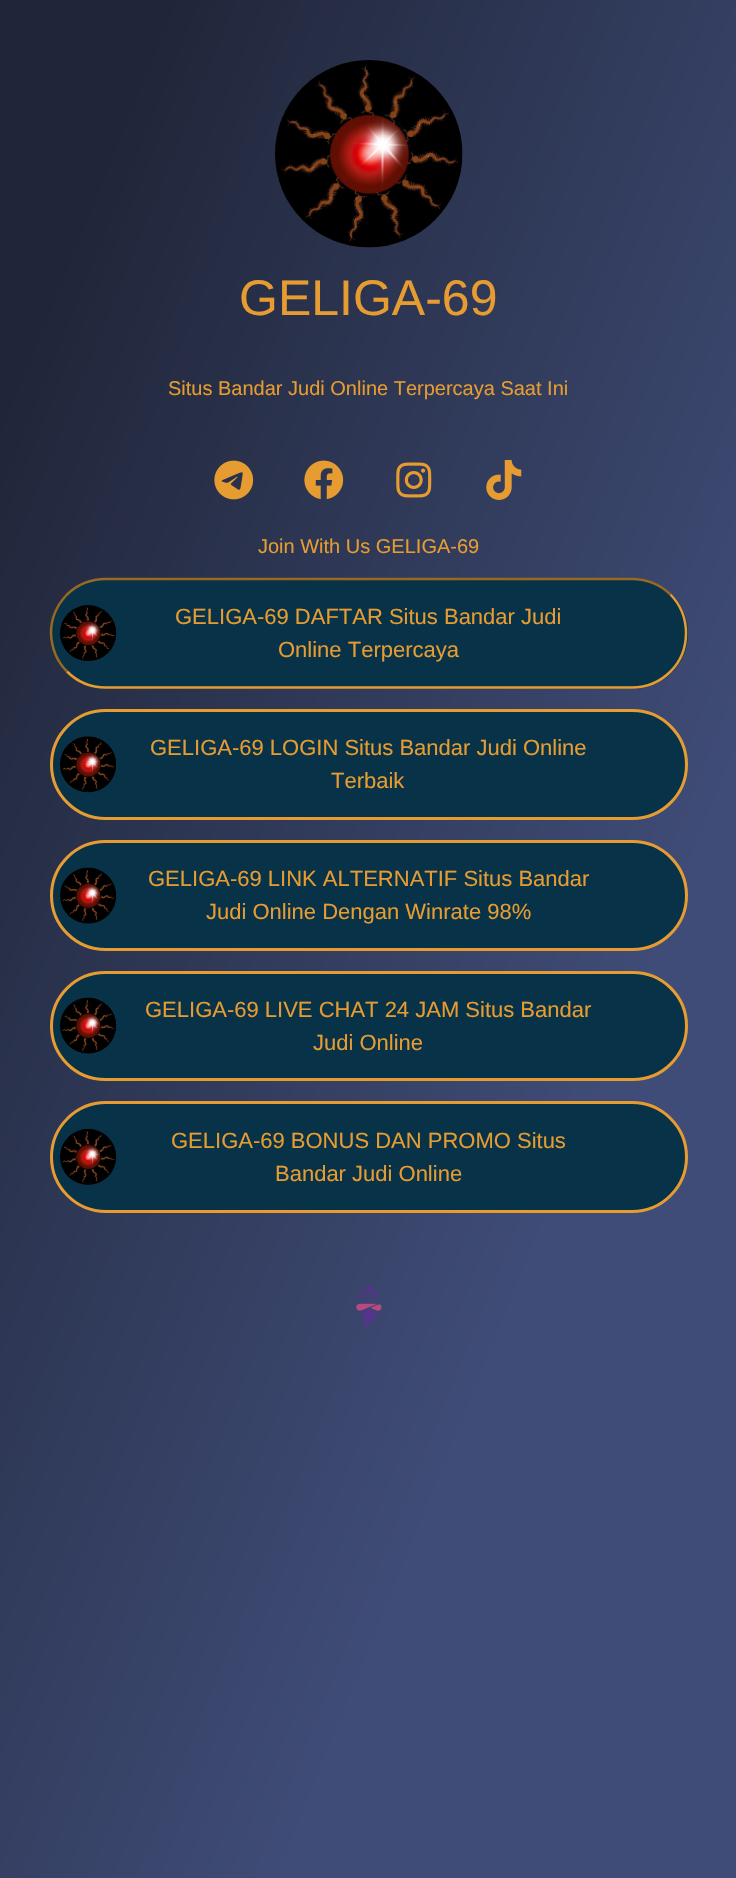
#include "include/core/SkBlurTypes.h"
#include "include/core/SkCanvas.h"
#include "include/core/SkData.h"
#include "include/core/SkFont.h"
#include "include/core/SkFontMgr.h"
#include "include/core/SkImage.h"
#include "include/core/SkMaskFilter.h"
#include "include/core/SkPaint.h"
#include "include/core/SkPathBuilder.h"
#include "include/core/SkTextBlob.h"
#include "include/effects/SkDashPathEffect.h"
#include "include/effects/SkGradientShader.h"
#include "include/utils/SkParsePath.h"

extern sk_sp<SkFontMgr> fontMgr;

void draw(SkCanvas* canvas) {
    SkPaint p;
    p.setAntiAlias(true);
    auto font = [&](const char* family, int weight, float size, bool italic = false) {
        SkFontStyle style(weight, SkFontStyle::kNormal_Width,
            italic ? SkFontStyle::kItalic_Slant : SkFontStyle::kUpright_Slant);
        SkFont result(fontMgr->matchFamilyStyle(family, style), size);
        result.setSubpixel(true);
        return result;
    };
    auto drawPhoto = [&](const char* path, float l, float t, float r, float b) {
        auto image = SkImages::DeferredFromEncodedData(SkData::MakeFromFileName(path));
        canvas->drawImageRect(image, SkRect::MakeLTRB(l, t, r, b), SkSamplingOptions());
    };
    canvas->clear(0xFFFFFFFF);
    {
        const SkColor colors[] = {0xFF202639, 0xFF3F4C77};
        const float stops[] = {0.11f, 0.7f};
        const SkPoint ends[] = {{-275, 678}, {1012, 1201}};
        p.setShader(SkGradientShader::MakeLinear(ends, colors, stops, 2, SkTileMode::kClamp));
        p.setAlpha(255);
    }
    canvas->drawRect(SkRect::MakeLTRB(0, 0, 736, 1878), p);
    drawPhoto("media/1.png", 275, 60, 463, 248);
    auto font1 = font("Liberation Sans", 400, 50);
    p.setShader(nullptr);
    p.setColor(0xFFE69C31);
    canvas->drawString("GELIGA-69", 239, 315, font1, p);
    auto font2 = font("Liberation Sans", 400, 20);
    canvas->drawString("Situs Bandar Judi Online Terpercaya Saat Ini", 168, 395, font2, p);
    drawPhoto("media/2.png", 214, 460, 254, 500);
    drawPhoto("media/3.png", 304, 460, 344, 500);
    drawPhoto("media/4.png", 396, 462, 432, 498);
    drawPhoto("media/5.png", 486, 460, 522, 500);
    canvas->drawString("Join With Us GELIGA-69", 258, 553, font2, p);
    p.setColor(0xFF083248);
    canvas->drawRoundRect(SkRect::MakeLTRB(50, 578, 688, 689), 55.5f, 55.5f, p);
    p.setStyle(SkPaint::kStroke_Style);
    p.setStrokeWidth(2.5f);
    p.setColor(0xFFE69C31);
    canvas->drawPath(SkPathBuilder().moveTo(670.5f, 594.5f).cubicTo(680.5f, 605, 686, 618.5f, 686, 633).cubicTo(686, 647.5f, 680.5f, 661.5f, 670.5f, 671.5f).cubicTo(660, 682, 646.5f, 687.5f, 632, 687.5f).lineTo(105.5f, 687.5f).cubicTo(91, 687.5f, 77.5f, 682, 67, 671.5f).detach(), p);
    p.setColor(0xFF996821);
    canvas->drawPath(SkPathBuilder().moveTo(67, 671.5f).cubicTo(57, 661.5f, 51.5f, 647.5f, 51, 633).cubicTo(51, 618.5f, 57, 605, 67, 594.5f).cubicTo(77.5f, 584.5f, 91, 579, 105.5f, 579).lineTo(632, 579).cubicTo(646.5f, 579, 660, 584.5f, 670.5f, 594.5f).detach(), p);
    drawPhoto("media/6.png", 60, 605, 117, 661);
    auto font3 = font("Liberation Sans", 400, 22);
    p.setStyle(SkPaint::kFill_Style);
    p.setColor(0xFFE69C31);
    canvas->drawString("GELIGA-69 DAFTAR Situs Bandar Judi", 175, 624, font3, p);
    canvas->drawString("Online Terpercaya", 278, 657, font3, p);
    p.setColor(0xFF083248);
    canvas->drawRoundRect(SkRect::MakeLTRB(51.5f, 710.5f, 686.5f, 818.5f), 54, 54, p);
    p.setStyle(SkPaint::kStroke_Style);
    p.setStrokeWidth(3);
    p.setColor(0xFFE69C31);
    canvas->drawRoundRect(SkRect::MakeLTRB(51.5f, 710.5f, 686.5f, 818.5f), 54, 54, p);
    drawPhoto("media/7.png", 60, 736, 117, 793);
    p.setStyle(SkPaint::kFill_Style);
    canvas->drawString("GELIGA-69 LOGIN Situs Bandar Judi Online", 150, 755, font3, p);
    canvas->drawString("Terbaik", 331, 788, font3, p);
    p.setColor(0xFF083248);
    canvas->drawRoundRect(SkRect::MakeLTRB(51.5f, 841.5f, 686.5f, 949.5f), 54, 54, p);
    p.setStyle(SkPaint::kStroke_Style);
    p.setColor(0xFFE69C31);
    canvas->drawRoundRect(SkRect::MakeLTRB(51.5f, 841.5f, 686.5f, 949.5f), 54, 54, p);
    drawPhoto("media/8.png", 60, 867, 116, 924);
    p.setStyle(SkPaint::kFill_Style);
    canvas->drawString("GELIGA-69 LINK ALTERNATIF Situs Bandar", 148, 886, font3, p);
    canvas->drawString("Judi Online Dengan Winrate 98%", 206, 919, font3, p);
    p.setColor(0xFF083248);
    canvas->drawRoundRect(SkRect::MakeLTRB(51.5f, 972.5f, 686.5f, 1079.5f), 53.5f, 53.5f, p);
    p.setStyle(SkPaint::kStroke_Style);
    p.setColor(0xFFE69C31);
    canvas->drawRoundRect(SkRect::MakeLTRB(51.5f, 972.5f, 686.5f, 1079.5f), 53.5f, 53.5f, p);
    drawPhoto("media/9.png", 60, 997, 116, 1054);
    p.setStyle(SkPaint::kFill_Style);
    canvas->drawString("GELIGA-69 LIVE CHAT 24 JAM Situs Bandar", 145, 1017, font3, p);
    canvas->drawString("Judi Online", 313, 1050, font3, p);
    p.setColor(0xFF083248);
    canvas->drawRoundRect(SkRect::MakeLTRB(51.5f, 1102.5f, 686.5f, 1211.5f), 54.5f, 54.5f, p);
    p.setStyle(SkPaint::kStroke_Style);
    p.setColor(0xFFE69C31);
    canvas->drawRoundRect(SkRect::MakeLTRB(51.5f, 1102.5f, 686.5f, 1211.5f), 54.5f, 54.5f, p);
    drawPhoto("media/10.png", 60, 1129, 116, 1185);
    p.setStyle(SkPaint::kFill_Style);
    canvas->drawString("GELIGA-69 BONUS DAN PROMO Situs", 171, 1148, font3, p);
    canvas->drawString("Bandar Judi Online", 275, 1181, font3, p);
    drawPhoto("media/11.png", 356, 1284, 382, 1327);
}
